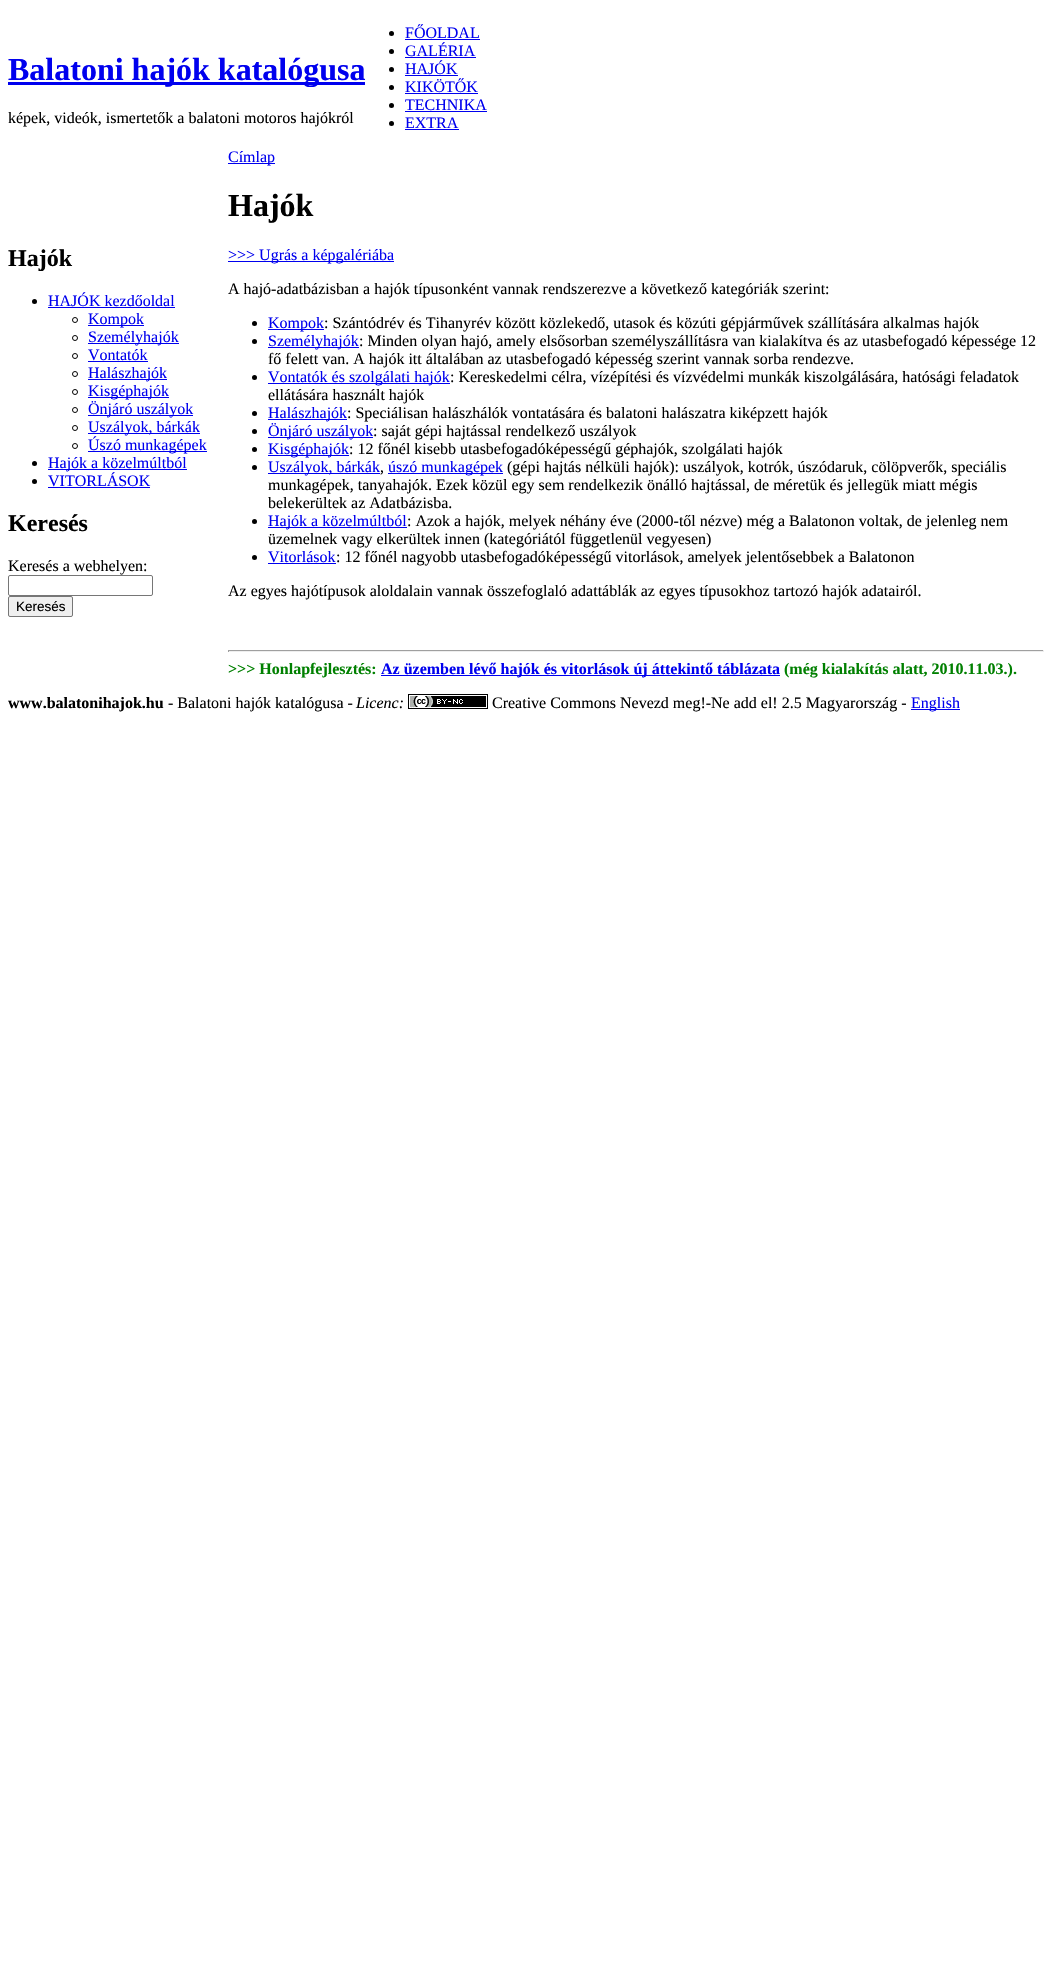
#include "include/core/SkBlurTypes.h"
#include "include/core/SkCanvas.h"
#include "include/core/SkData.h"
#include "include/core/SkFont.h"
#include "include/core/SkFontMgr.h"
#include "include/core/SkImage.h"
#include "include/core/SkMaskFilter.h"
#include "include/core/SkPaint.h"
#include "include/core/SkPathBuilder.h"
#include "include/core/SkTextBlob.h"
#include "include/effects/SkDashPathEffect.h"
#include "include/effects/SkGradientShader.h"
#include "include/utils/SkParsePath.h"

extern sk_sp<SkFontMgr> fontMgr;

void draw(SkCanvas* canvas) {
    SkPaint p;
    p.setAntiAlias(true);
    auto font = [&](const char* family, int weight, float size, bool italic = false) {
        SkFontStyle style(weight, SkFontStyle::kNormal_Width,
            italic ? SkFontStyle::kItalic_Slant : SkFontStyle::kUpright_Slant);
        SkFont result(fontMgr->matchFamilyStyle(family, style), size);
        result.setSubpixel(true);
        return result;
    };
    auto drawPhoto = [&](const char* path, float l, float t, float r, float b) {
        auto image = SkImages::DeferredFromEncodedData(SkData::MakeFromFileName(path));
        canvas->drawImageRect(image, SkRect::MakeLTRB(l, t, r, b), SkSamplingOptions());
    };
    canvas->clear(0xFFFFFFFF);
    p.setColor(0xFF0000EE);
    canvas->drawRect(SkRect::MakeLTRB(8, 82, 365, 85), p);
    auto font1 = font("Liberation Serif", 700, 32);
    canvas->drawString("Balatoni hajók katalógusa", 8, 80, font1, p);
    auto font2 = font("Liberation Serif", 400, 16);
    p.setColor(0xFF000000);
    canvas->drawString("képek, videók, ismertetők a balatoni motoros hajókról", 8, 123, font2, p);
    canvas->drawCircle(391.5f, 33.5f, 2.5f, p);
    p.setColor(0xFF0000EE);
    canvas->drawString("FŐOLDAL", 405, 38, font2, p);
    canvas->drawRect(SkRect::MakeLTRB(405, 39, 480, 40), p);
    p.setColor(0xFF000000);
    canvas->drawCircle(391.5f, 51.5f, 2.5f, p);
    p.setColor(0xFF0000EE);
    canvas->drawString("GALÉRIA", 405, 56, font2, p);
    canvas->drawRect(SkRect::MakeLTRB(405, 57, 476, 58), p);
    p.setColor(0xFF000000);
    canvas->drawCircle(391.5f, 69.5f, 2.5f, p);
    p.setColor(0xFF0000EE);
    canvas->drawString("HAJÓK", 405, 74, font2, p);
    canvas->drawRect(SkRect::MakeLTRB(405, 75, 458, 76), p);
    p.setColor(0xFF000000);
    canvas->drawCircle(391.5f, 87.5f, 2.5f, p);
    p.setColor(0xFF0000EE);
    canvas->drawString("KIKÖTŐK", 405, 92, font2, p);
    canvas->drawRect(SkRect::MakeLTRB(405, 93, 478, 94), p);
    p.setColor(0xFF000000);
    canvas->drawCircle(391.5f, 105.5f, 2.5f, p);
    p.setColor(0xFF0000EE);
    canvas->drawString("TECHNIKA", 405, 110, font2, p);
    canvas->drawRect(SkRect::MakeLTRB(405, 111, 487, 112), p);
    p.setColor(0xFF000000);
    canvas->drawCircle(391.5f, 123.5f, 2.5f, p);
    p.setColor(0xFF0000EE);
    canvas->drawString("EXTRA", 405, 128, font2, p);
    canvas->drawRect(SkRect::MakeLTRB(405, 129, 459, 130), p);
    auto font3 = font("Liberation Serif", 700, 24);
    p.setColor(0xFF000000);
    canvas->drawString("Hajók", 8, 266, font3, p);
    canvas->drawCircle(34.5f, 301.5f, 2.5f, p);
    p.setColor(0xFF0000EE);
    canvas->drawString("HAJÓK kezdőoldal", 48, 306, font2, p);
    canvas->drawRect(SkRect::MakeLTRB(48, 307, 175, 308), p);
    p.setStyle(SkPaint::kStroke_Style);
    p.setStrokeWidth(1);
    p.setColor(0xFF000000);
    canvas->drawCircle(75, 320, 2.5f, p);
    p.setStyle(SkPaint::kFill_Style);
    p.setColor(0xFF0000EE);
    canvas->drawRect(SkRect::MakeLTRB(88, 325, 144, 326), p);
    canvas->drawString("Kompok", 88, 324, font2, p);
    p.setStyle(SkPaint::kStroke_Style);
    p.setColor(0xFF000000);
    canvas->drawCircle(75, 338, 2.5f, p);
    p.setStyle(SkPaint::kFill_Style);
    p.setColor(0xFF0000EE);
    canvas->drawRect(SkRect::MakeLTRB(88, 343, 179, 344), p);
    canvas->drawString("Személyhajók", 88, 342, font2, p);
    p.setStyle(SkPaint::kStroke_Style);
    p.setColor(0xFF000000);
    canvas->drawCircle(75, 356, 2.5f, p);
    p.setStyle(SkPaint::kFill_Style);
    p.setColor(0xFF0000EE);
    canvas->drawString("Vontatók", 88, 360, font2, p);
    canvas->drawRect(SkRect::MakeLTRB(88, 361, 148, 362), p);
    p.setStyle(SkPaint::kStroke_Style);
    p.setColor(0xFF000000);
    canvas->drawCircle(75, 374, 2.5f, p);
    p.setStyle(SkPaint::kFill_Style);
    p.setColor(0xFF0000EE);
    canvas->drawRect(SkRect::MakeLTRB(88, 379, 167, 380), p);
    canvas->drawString("Halászhajók", 88, 378, font2, p);
    p.setStyle(SkPaint::kStroke_Style);
    p.setColor(0xFF000000);
    canvas->drawCircle(75, 392, 2.5f, p);
    p.setStyle(SkPaint::kFill_Style);
    p.setColor(0xFF0000EE);
    canvas->drawRect(SkRect::MakeLTRB(88, 397, 169, 398), p);
    canvas->drawString("Kisgéphajók", 88, 396, font2, p);
    p.setStyle(SkPaint::kStroke_Style);
    p.setColor(0xFF000000);
    canvas->drawCircle(75, 410, 2.5f, p);
    p.setStyle(SkPaint::kFill_Style);
    p.setColor(0xFF0000EE);
    canvas->drawRect(SkRect::MakeLTRB(88, 415, 193, 416), p);
    canvas->drawString("Önjáró uszályok", 88, 414, font2, p);
    p.setStyle(SkPaint::kStroke_Style);
    p.setColor(0xFF000000);
    canvas->drawCircle(75, 428, 2.5f, p);
    p.setStyle(SkPaint::kFill_Style);
    p.setColor(0xFF0000EE);
    canvas->drawRect(SkRect::MakeLTRB(88, 433, 200, 434), p);
    canvas->drawString("Uszályok, bárkák", 88, 432, font2, p);
    p.setStyle(SkPaint::kStroke_Style);
    p.setColor(0xFF000000);
    canvas->drawCircle(75, 446, 2.5f, p);
    p.setStyle(SkPaint::kFill_Style);
    p.setColor(0xFF0000EE);
    canvas->drawRect(SkRect::MakeLTRB(88, 451, 207, 452), p);
    canvas->drawString("Úszó munkagépek", 88, 450, font2, p);
    p.setColor(0xFF000000);
    canvas->drawCircle(34.5f, 463.5f, 2.5f, p);
    p.setColor(0xFF0000EE);
    canvas->drawRect(SkRect::MakeLTRB(48, 469, 187, 470), p);
    canvas->drawString("Hajók a közelmúltból", 48, 468, font2, p);
    p.setColor(0xFF000000);
    canvas->drawCircle(34.5f, 481.5f, 2.5f, p);
    p.setColor(0xFF0000EE);
    canvas->drawString("VITORLÁSOK", 48, 486, font2, p);
    canvas->drawRect(SkRect::MakeLTRB(48, 487, 150, 488), p);
    p.setColor(0xFF000000);
    canvas->drawString("Keresés", 8, 531, font3, p);
    canvas->drawString("Keresés a webhelyen:", 8, 571, font2, p);
    p.setStyle(SkPaint::kStroke_Style);
    p.setColor(0xFF767676);
    canvas->drawRoundRect(SkRect::MakeLTRB(8.5f, 575.5f, 152.5f, 595.5f), 1.5f, 1.5f, p);
    p.setStyle(SkPaint::kFill_Style);
    p.setColor(0xFFEFEFEF);
    canvas->drawRoundRect(SkRect::MakeLTRB(8.5f, 596.5f, 72.5f, 616.5f), 1.5f, 1.5f, p);
    p.setStyle(SkPaint::kStroke_Style);
    p.setColor(0xFF767676);
    canvas->drawRoundRect(SkRect::MakeLTRB(8.5f, 596.5f, 72.5f, 616.5f), 1.5f, 1.5f, p);
    auto font4 = font("Liberation Sans", 400, 13.5f);
    p.setStyle(SkPaint::kFill_Style);
    p.setColor(0xFF000000);
    canvas->drawString("Keresés", 16, 611, font4, p);
    p.setColor(0xFF0000EE);
    canvas->drawRect(SkRect::MakeLTRB(228, 163, 275, 164), p);
    canvas->drawString("Címlap", 228, 162, font2, p);
    p.setColor(0xFF000000);
    canvas->drawString("Hajók", 228, 216, font1, p);
    p.setColor(0xFF0000EE);
    canvas->drawRect(SkRect::MakeLTRB(228, 261, 394, 262), p);
    canvas->drawString(">>> Ugrás a képgalériába", 228, 260, font2, p);
    p.setColor(0xFF000000);
    canvas->drawString("A hajó-adatbázisban a hajók típusonként vannak rendszerezve a következő kategóriák szerint:", 228, 294, font2, p);
    canvas->drawCircle(254.5f, 323.5f, 2.5f, p);
    p.setColor(0xFF0000EE);
    canvas->drawRect(SkRect::MakeLTRB(268, 329, 324, 330), p);
    canvas->drawString("Kompok", 268, 328, font2, p);
    p.setColor(0xFF000000);
    canvas->drawString(": Szántódrév és Tihanyrév között közlekedő, utasok és közúti gépjárművek szállítására alkalmas hajók", 324, 328, font2, p);
    canvas->drawCircle(254.5f, 341.5f, 2.5f, p);
    p.setColor(0xFF0000EE);
    canvas->drawRect(SkRect::MakeLTRB(268, 347, 359, 348), p);
    canvas->drawString("Személyhajók", 268, 346, font2, p);
    p.setColor(0xFF000000);
    canvas->drawString(": Minden olyan hajó, amely elsősorban személyszállításra van kialakítva és az utasbefogadó képessége 12", 359, 346, font2, p);
    canvas->drawString("fő felett van. A hajók itt általában az utasbefogadó képesség szerint vannak sorba rendezve.", 268, 364, font2, p);
    canvas->drawCircle(254.5f, 377.5f, 2.5f, p);
    p.setColor(0xFF0000EE);
    canvas->drawRect(SkRect::MakeLTRB(268, 383, 450, 384), p);
    canvas->drawString("Vontatók és szolgálati hajók", 268, 382, font2, p);
    p.setColor(0xFF000000);
    canvas->drawString(": Kereskedelmi célra, vízépítési és vízvédelmi munkák kiszolgálására, hatósági feladatok", 450, 382, font2, p);
    canvas->drawString("ellátására használt hajók", 268, 400, font2, p);
    canvas->drawCircle(254.5f, 413.5f, 2.5f, p);
    p.setColor(0xFF0000EE);
    canvas->drawRect(SkRect::MakeLTRB(268, 419, 347, 420), p);
    canvas->drawString("Halászhajók", 268, 418, font2, p);
    p.setColor(0xFF000000);
    canvas->drawString(": Speciálisan halászhálók vontatására és balatoni halászatra kiképzett hajók", 347, 418, font2, p);
    canvas->drawCircle(254.5f, 431.5f, 2.5f, p);
    p.setColor(0xFF0000EE);
    canvas->drawRect(SkRect::MakeLTRB(268, 437, 373, 438), p);
    canvas->drawString("Önjáró uszályok", 268, 436, font2, p);
    p.setColor(0xFF000000);
    canvas->drawString(": saját gépi hajtással rendelkező uszályok", 373, 436, font2, p);
    canvas->drawCircle(254.5f, 449.5f, 2.5f, p);
    p.setColor(0xFF0000EE);
    canvas->drawRect(SkRect::MakeLTRB(268, 455, 349, 456), p);
    canvas->drawString("Kisgéphajók", 268, 454, font2, p);
    p.setColor(0xFF000000);
    canvas->drawString(": 12 főnél kisebb utasbefogadóképességű géphajók, szolgálati hajók", 349, 454, font2, p);
    canvas->drawCircle(254.5f, 467.5f, 2.5f, p);
    p.setColor(0xFF0000EE);
    canvas->drawRect(SkRect::MakeLTRB(268, 473, 380, 474), p);
    canvas->drawString("Uszályok, bárkák", 268, 472, font2, p);
    canvas->drawRect(SkRect::MakeLTRB(388, 473, 503, 474), p);
    canvas->drawString("úszó munkagépek", 388, 472, font2, p);
    p.setColor(0xFF000000);
    {
        const struct { const char* s; float x, y; } items[] = {
            {"(gépi hajtás nélküli hajók): uszályok, kotrók, úszódaruk, cölöpverők, speciális", 507, 472},
            {",", 380, 472},
            {"munkagépek, tanyahajók. Ezek közül egy sem rendelkezik önálló hajtással, de méretük és jellegük miatt mégis", 268, 490},
            {"belekerültek az Adatbázisba.", 268, 508},
        };
        for (auto [s, x, y] : items) {
            canvas->drawString(s, x, y, font2, p);
        }
    }
    canvas->drawCircle(254.5f, 521.5f, 2.5f, p);
    p.setColor(0xFF0000EE);
    canvas->drawRect(SkRect::MakeLTRB(268, 527, 407, 528), p);
    canvas->drawString("Hajók a közelmúltból", 268, 526, font2, p);
    p.setColor(0xFF000000);
    canvas->drawString(": Azok a hajók, melyek néhány éve (2000-től nézve) még a Balatonon voltak, de jelenleg nem", 407, 526, font2, p);
    canvas->drawString("üzemelnek vagy elkerültek innen (kategóriától függetlenül vegyesen)", 268, 544, font2, p);
    canvas->drawCircle(254.5f, 557.5f, 2.5f, p);
    p.setColor(0xFF0000EE);
    canvas->drawString("Vitorlások", 268, 562, font2, p);
    canvas->drawRect(SkRect::MakeLTRB(268, 563, 336, 564), p);
    p.setColor(0xFF000000);
    canvas->drawString(": 12 főnél nagyobb utasbefogadóképességű vitorlások, amelyek jelentősebbek a Balatonon", 336, 562, font2, p);
    canvas->drawString("Az egyes hajótípusok aloldalain vannak összefoglaló adattáblák az egyes típusokhoz tartozó hajók adatairól.", 228, 596, font2, p);
    {
        const struct { float l, t, r, b; SkColor color; } items[] = {
            {228, 650, 1044, 651, 0xFF9F9F9F},
            {1043, 650, 1044, 652, 0xFFEEEEEE},
            {228, 651, 1044, 652, 0xFFEEEEEE},
            {228, 650, 229, 652, 0xFF9F9F9F},
        };
        for (auto [l, t, r, b, color] : items) {
            p.setColor(color);
            canvas->drawRect(SkRect::MakeLTRB(l, t, r, b), p);
        }
    }
    auto font5 = font("Liberation Serif", 700, 16);
    p.setColor(0xFF008000);
    canvas->drawString(">>> Honlapfejlesztés:", 228, 674, font5, p);
    p.setColor(0xFF0000EE);
    canvas->drawRect(SkRect::MakeLTRB(381, 675, 780, 676), p);
    canvas->drawString("Az üzemben lévő hajók és vitorlások új áttekintő táblázata", 381, 674, font5, p);
    p.setColor(0xFF008000);
    canvas->drawString("(még kialakítás alatt, 2010.11.03.).", 784, 674, font5, p);
    p.setColor(0xFF000000);
    canvas->drawString("www.balatonihajok.hu", 8, 708, font5, p);
    canvas->drawString("- Balatoni hajók katalógusa -", 168, 708, font2, p);
    auto font6 = font("Liberation Serif", 400, 16, true);
    canvas->drawString("Licenc:", 356, 708, font6, p);
    drawPhoto("media/1.png", 408, 694, 488, 709);
    canvas->drawString("Creative Commons Nevezd meg!-Ne add el! 2.5 Magyarország -", 492, 708, font2, p);
    p.setColor(0xFF0000EE);
    canvas->drawRect(SkRect::MakeLTRB(911, 709, 960, 710), p);
    canvas->drawString("English", 911, 708, font2, p);
}
